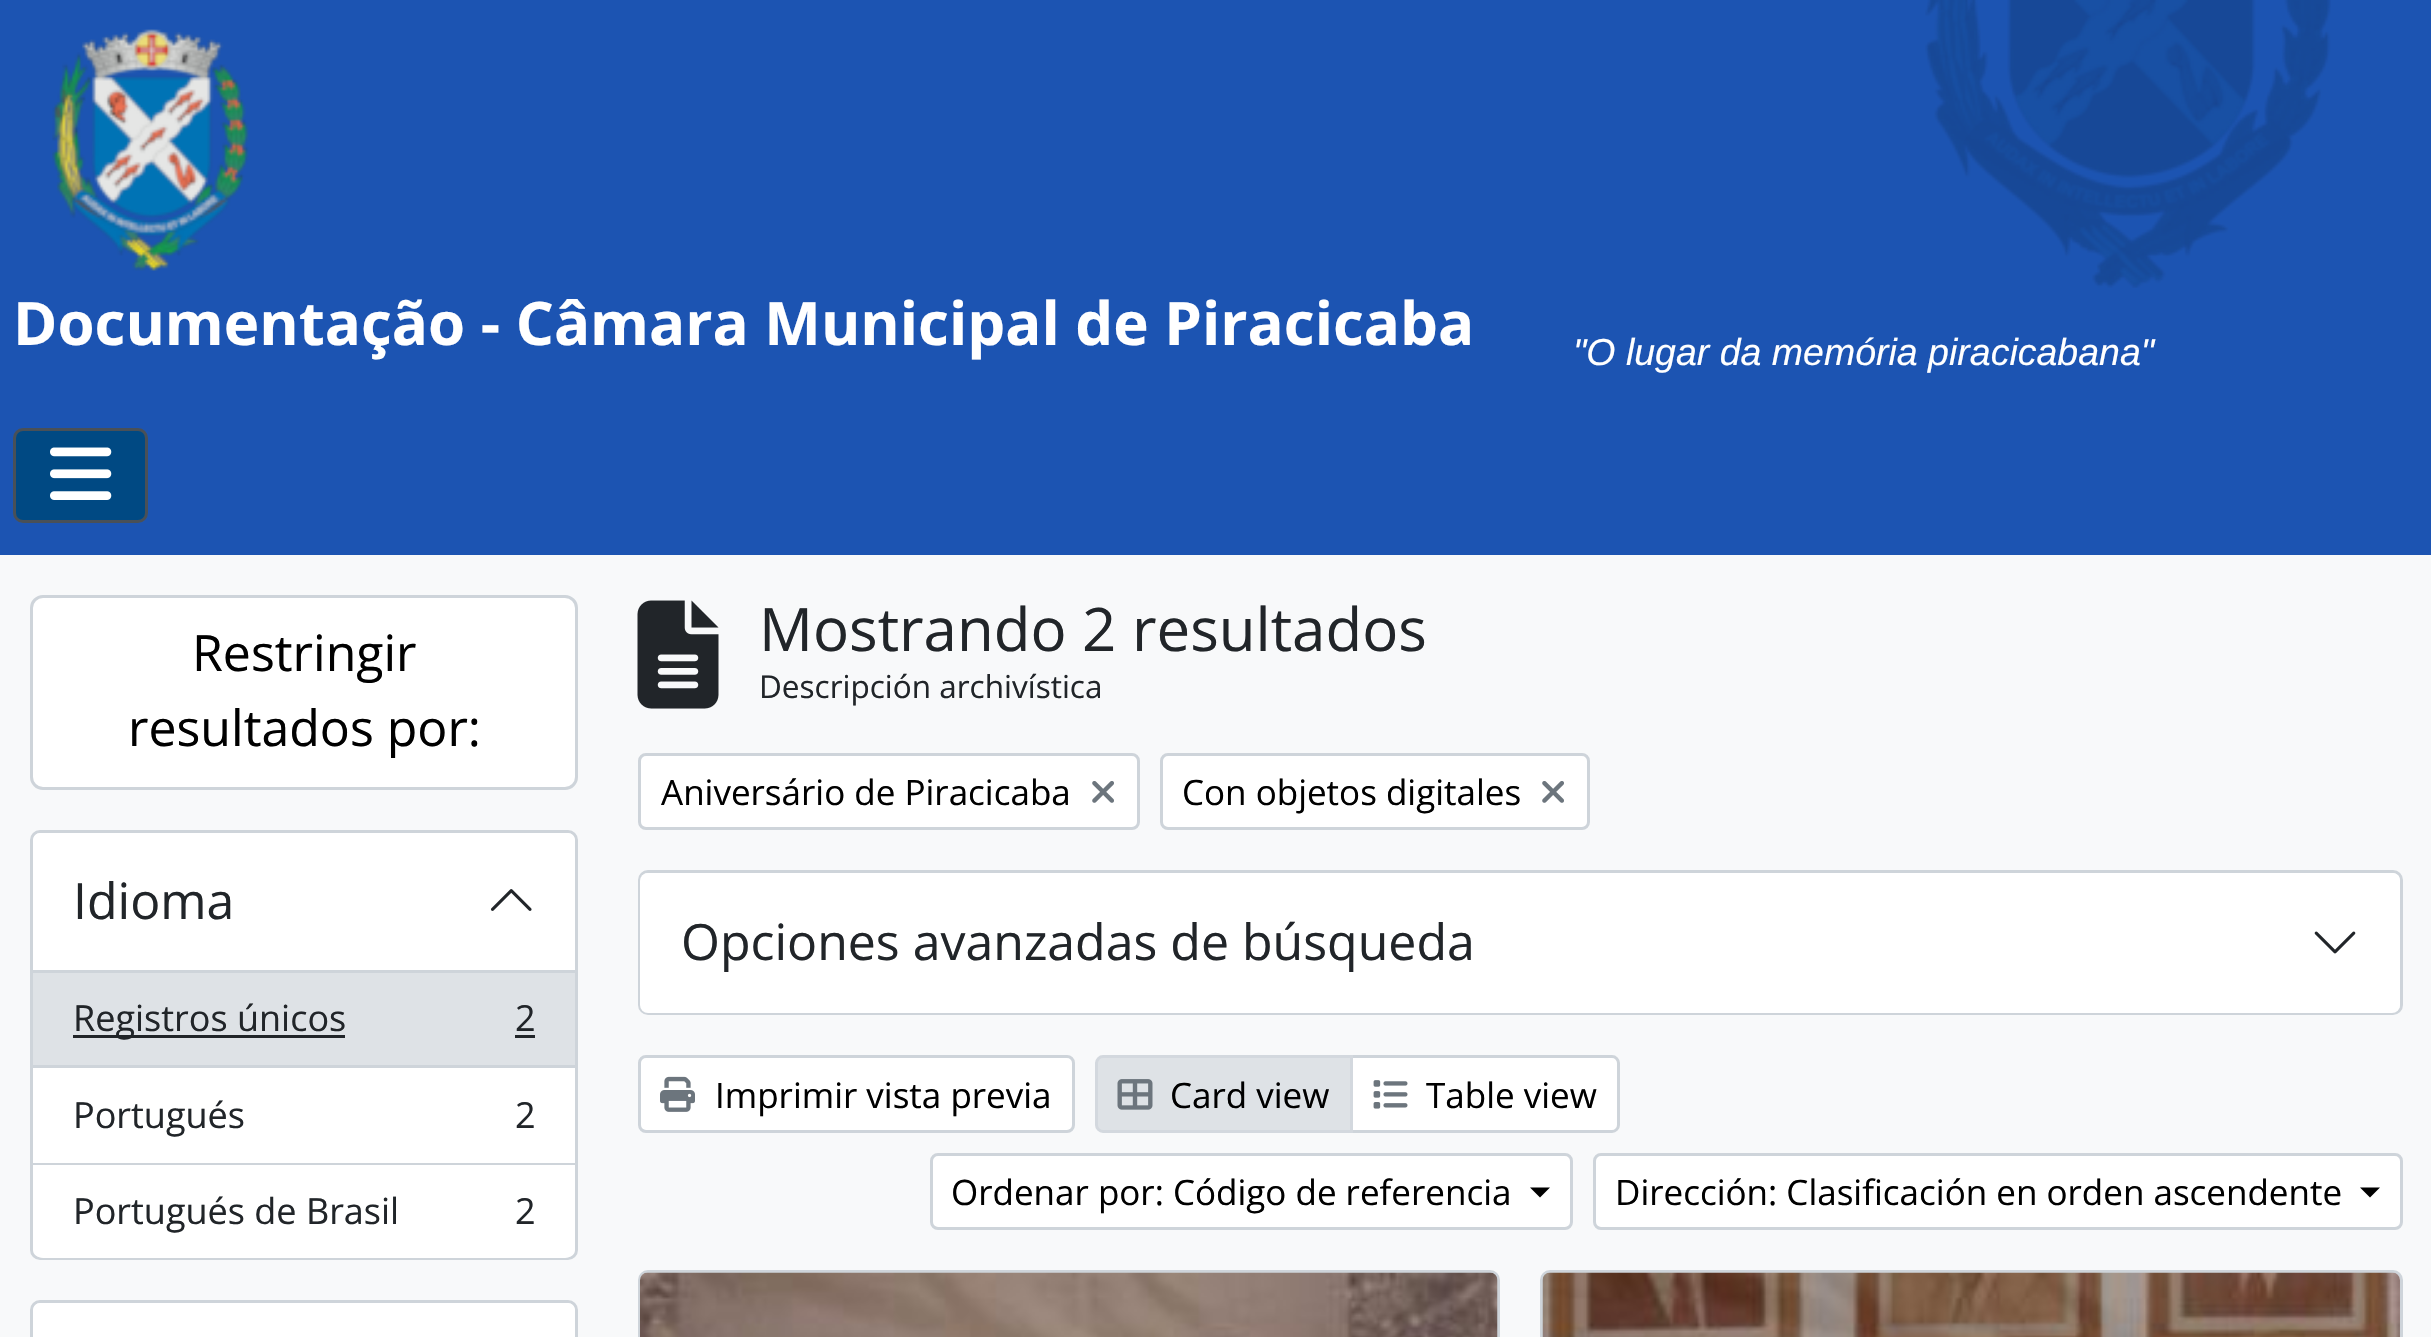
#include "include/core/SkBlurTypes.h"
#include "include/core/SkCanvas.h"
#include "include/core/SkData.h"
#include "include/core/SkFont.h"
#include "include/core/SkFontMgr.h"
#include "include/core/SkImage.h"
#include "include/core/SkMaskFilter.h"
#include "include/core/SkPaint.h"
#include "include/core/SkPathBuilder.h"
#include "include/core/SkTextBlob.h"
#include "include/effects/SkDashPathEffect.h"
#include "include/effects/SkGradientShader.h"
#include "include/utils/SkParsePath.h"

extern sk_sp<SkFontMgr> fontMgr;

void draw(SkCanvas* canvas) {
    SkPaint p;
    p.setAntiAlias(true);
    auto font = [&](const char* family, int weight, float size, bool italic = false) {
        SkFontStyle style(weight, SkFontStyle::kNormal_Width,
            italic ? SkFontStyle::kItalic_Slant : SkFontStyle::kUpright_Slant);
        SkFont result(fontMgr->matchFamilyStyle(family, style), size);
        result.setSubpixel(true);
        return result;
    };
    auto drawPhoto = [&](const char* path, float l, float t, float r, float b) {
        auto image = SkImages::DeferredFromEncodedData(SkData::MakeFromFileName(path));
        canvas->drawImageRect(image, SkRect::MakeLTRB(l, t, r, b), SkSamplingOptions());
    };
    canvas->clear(0xFFF8F9FA);
    p.setColor(0xFF1C54B2);
    canvas->drawRect(SkRect::MakeLTRB(0, 0, 2431, 555), p);
    drawPhoto("media/1.png", 1925, 0, 2331, 288);
    drawPhoto("media/2.png", 52, 29, 249, 271);
    auto font1 = font("Open Sans", 700, 60);
    p.setColor(0xFFFFFFFF);
    canvas->drawString("Documentação - Câmara Municipal de Piracicaba", 13, 345, font1, p);
    auto font2 = font("Liberation Sans", 400, 37.5f, true);
    canvas->drawString("\"O lugar da memória piracicabana\"", 1573, 365, font2, p);
    p.setColor(0xFF004983);
    canvas->drawRoundRect(SkRect::MakeLTRB(14.5f, 429.5f, 146.5f, 521.5f), 8.5f, 8.5f, p);
    p.setStyle(SkPaint::kStroke_Style);
    p.setStrokeWidth(3);
    p.setColor(0xFF495057);
    canvas->drawRoundRect(SkRect::MakeLTRB(14.5f, 429.5f, 146.5f, 521.5f), 8.5f, 8.5f, p);
    drawPhoto("media/3.png", 50, 447, 112, 500);
    p.setStyle(SkPaint::kFill_Style);
    p.setColor(0xFFFFFFFF);
    canvas->drawRoundRect(SkRect::MakeLTRB(31.5f, 596.5f, 576.5f, 788.5f), 11.5f, 11.5f, p);
    p.setStyle(SkPaint::kStroke_Style);
    p.setColor(0xFFCED4DA);
    canvas->drawRoundRect(SkRect::MakeLTRB(31.5f, 596.5f, 576.5f, 788.5f), 11.5f, 11.5f, p);
    auto font3 = font("Open Sans", 400, 50);
    p.setStyle(SkPaint::kFill_Style);
    p.setColor(0xFF000000);
    canvas->drawString("Restringir", 192, 671, font3, p);
    canvas->drawString("resultados por:", 128, 746, font3, p);
    p.setColor(0xFFFFFFFF);
    canvas->drawRoundRect(SkRect::MakeLTRB(31.5f, 831.5f, 576.5f, 1258.5f), 8.5f, 8.5f, p);
    p.setStyle(SkPaint::kStroke_Style);
    p.setColor(0xFFCED4DA);
    canvas->drawRoundRect(SkRect::MakeLTRB(31.5f, 831.5f, 576.5f, 1258.5f), 8.5f, 8.5f, p);
    p.setStyle(SkPaint::kFill_Style);
    p.setColor(0xFFFFFFFF);
    canvas->drawPath(SkPathBuilder().moveTo(41, 833).lineTo(567, 833).cubicTo(571.5f, 833, 575, 836.5f, 575, 841).lineTo(575, 973).lineTo(33, 973).lineTo(33, 841).cubicTo(33, 836.5f, 36.5f, 833, 41, 833).close().detach(), p);
    p.setColor(0xFFCED4DA);
    canvas->drawRect(SkRect::MakeLTRB(33, 970, 575, 973), p);
    p.setColor(0xFF212529);
    canvas->drawString("Idioma", 73, 919, font3, p);
    drawPhoto("media/4.png", 490, 889, 532, 911);
    {
        const struct { float l, t, r, b; SkColor color; } items[] = {
            {33, 973, 575, 1065, 0xFFDEE2E6},
            {33, 1065, 575, 1068, 0xFFCED4DA},
            {73, 1035, 345, 1038, 0xFF212529},
        };
        for (auto [l, t, r, b, color] : items) {
            p.setColor(color);
            canvas->drawRect(SkRect::MakeLTRB(l, t, r, b), p);
        }
    }
    auto font4 = font("Open Sans", 400, 36);
    canvas->drawString("Registros únicos", 73, 1031, font4, p);
    canvas->drawString("2", 515, 1031, font4, p);
    canvas->drawRect(SkRect::MakeLTRB(515, 1035, 535, 1038), p);
    p.setColor(0xFFCED4DA);
    canvas->drawRect(SkRect::MakeLTRB(33, 1163, 575, 1165), p);
    p.setColor(0xFF212529);
    canvas->drawString("Portugués", 73, 1128, font4, p);
    canvas->drawString("2", 515, 1128, font4, p);
    p.setColor(0xFFFFFFFF);
    canvas->drawPath(SkPathBuilder().moveTo(33, 1165).lineTo(575, 1165).lineTo(575, 1248).cubicTo(575, 1253.5f, 570.5f, 1258, 565, 1258).lineTo(43, 1258).cubicTo(37.5f, 1258, 33, 1253.5f, 33, 1248).close().detach(), p);
    p.setColor(0xFF212529);
    canvas->drawString("Portugués de Brasil", 73, 1224, font4, p);
    canvas->drawString("2", 515, 1224, font4, p);
    p.setColor(0xFFFFFFFF);
    canvas->drawRoundRect(SkRect::MakeLTRB(31.5f, 1301.5f, 576.5f, 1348.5f), 8.5f, 8.5f, p);
    p.setStyle(SkPaint::kStroke_Style);
    p.setColor(0xFFCED4DA);
    canvas->drawRoundRect(SkRect::MakeLTRB(31.5f, 1301.5f, 576.5f, 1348.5f), 8.5f, 8.5f, p);
    p.setStyle(SkPaint::kFill_Style);
    p.setColor(0xFFFFFFFF);
    canvas->drawPath(SkPathBuilder().moveTo(41, 1303).lineTo(567, 1303).cubicTo(571.5f, 1303, 575, 1306.5f, 575, 1311).lineTo(575, 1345).lineTo(33, 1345).lineTo(33, 1311).cubicTo(33, 1306.5f, 36.5f, 1303, 41, 1303).close().detach(), p);
    drawPhoto("media/5.png", 637, 600, 719, 709);
    auto font5 = font("Open Sans", 400, 60);
    p.setColor(0xFF212529);
    canvas->drawString("Mostrando 2 resultados", 759, 651, font5, p);
    auto font6 = font("Open Sans", 400, 31.5f);
    canvas->drawString("Descripción archivística", 759, 698, font6, p);
    p.setColor(0xFFFFFFFF);
    canvas->drawRoundRect(SkRect::MakeLTRB(639.5f, 754.5f, 1138.5f, 828.5f), 6.5f, 6.5f, p);
    p.setStyle(SkPaint::kStroke_Style);
    p.setColor(0xFFCED4DA);
    canvas->drawRoundRect(SkRect::MakeLTRB(639.5f, 754.5f, 1138.5f, 828.5f), 6.5f, 6.5f, p);
    auto font7 = font("Open Sans", 400, 35);
    p.setStyle(SkPaint::kFill_Style);
    p.setColor(0xFF000000);
    canvas->drawString("Aniversário de Piracicaba", 661, 805, font7, p);
    drawPhoto("media/6.png", 1092, 781, 1114, 803);
    p.setColor(0xFFFFFFFF);
    canvas->drawRoundRect(SkRect::MakeLTRB(1161.5f, 754.5f, 1588.5f, 828.5f), 6.5f, 6.5f, p);
    p.setStyle(SkPaint::kStroke_Style);
    p.setColor(0xFFCED4DA);
    canvas->drawRoundRect(SkRect::MakeLTRB(1161.5f, 754.5f, 1588.5f, 828.5f), 6.5f, 6.5f, p);
    p.setStyle(SkPaint::kFill_Style);
    p.setColor(0xFF000000);
    canvas->drawString("Con objetos digitales", 1182, 805, font7, p);
    drawPhoto("media/6.png", 1542, 781, 1564, 803);
    p.setColor(0xFFFFFFFF);
    canvas->drawRoundRect(SkRect::MakeLTRB(639.5f, 871.5f, 2401.5f, 1013.5f), 8.5f, 8.5f, p);
    p.setStyle(SkPaint::kStroke_Style);
    p.setColor(0xFFCED4DA);
    canvas->drawRoundRect(SkRect::MakeLTRB(639.5f, 871.5f, 2401.5f, 1013.5f), 8.5f, 8.5f, p);
    p.setStyle(SkPaint::kFill_Style);
    p.setColor(0xFFFFFFFF);
    canvas->drawRoundRect(SkRect::MakeLTRB(640, 873, 2400, 1013), 8, 8, p);
    p.setColor(0xFF212529);
    canvas->drawString("Opciones avanzadas de búsqueda", 681, 960, font3, p);
    drawPhoto("media/7.png", 2314, 931, 2356, 954);
    p.setColor(0xFFFFFFFF);
    canvas->drawRoundRect(SkRect::MakeLTRB(639.5f, 1056.5f, 1073.5f, 1131.5f), 6.5f, 6.5f, p);
    p.setStyle(SkPaint::kStroke_Style);
    p.setColor(0xFFCED4DA);
    canvas->drawRoundRect(SkRect::MakeLTRB(639.5f, 1056.5f, 1073.5f, 1131.5f), 6.5f, 6.5f, p);
    drawPhoto("media/8.png", 660, 1076, 695, 1112);
    p.setStyle(SkPaint::kFill_Style);
    p.setColor(0xFF000000);
    canvas->drawString("Imprimir vista previa", 715, 1108, font7, p);
    p.setColor(0xFFFFFFFF);
    canvas->drawPath(SkPathBuilder().moveTo(1351.5f, 1056.5f).lineTo(1612, 1056.5f).cubicTo(1615.5f, 1056.5f, 1618.5f, 1059.5f, 1618.5f, 1063).lineTo(1618.5f, 1125).cubicTo(1618.5f, 1128.5f, 1615.5f, 1131.5f, 1612, 1131.5f).lineTo(1351.5f, 1131.5f).close().detach(), p);
    p.setStyle(SkPaint::kStroke_Style);
    p.setColor(0xFFCED4DA);
    canvas->drawPath(SkPathBuilder().moveTo(1351.5f, 1056.5f).lineTo(1612, 1056.5f).cubicTo(1615.5f, 1056.5f, 1618.5f, 1059.5f, 1618.5f, 1063).lineTo(1618.5f, 1125).cubicTo(1618.5f, 1128.5f, 1615.5f, 1131.5f, 1612, 1131.5f).lineTo(1351.5f, 1131.5f).close().detach(), p);
    p.setStyle(SkPaint::kFill_Style);
    p.setColor(0xFFDEE2E6);
    canvas->drawPath(SkPathBuilder().moveTo(1103, 1056.5f).lineTo(1351.5f, 1056.5f).lineTo(1351.5f, 1131.5f).lineTo(1103, 1131.5f).cubicTo(1099.5f, 1131.5f, 1096.5f, 1128.5f, 1096.5f, 1125).lineTo(1096.5f, 1063).cubicTo(1096.5f, 1059.5f, 1099.5f, 1056.5f, 1103, 1056.5f).close().detach(), p);
    p.setStyle(SkPaint::kStroke_Style);
    p.setColor(0xFFD3D8DE);
    canvas->drawPath(SkPathBuilder().moveTo(1103, 1056.5f).lineTo(1351.5f, 1056.5f).lineTo(1351.5f, 1131.5f).lineTo(1103, 1131.5f).cubicTo(1099.5f, 1131.5f, 1096.5f, 1128.5f, 1096.5f, 1125).lineTo(1096.5f, 1063).cubicTo(1096.5f, 1059.5f, 1099.5f, 1056.5f, 1103, 1056.5f).close().detach(), p);
    drawPhoto("media/9.png", 1117, 1079, 1153, 1110);
    p.setStyle(SkPaint::kFill_Style);
    p.setColor(0xFF000000);
    canvas->drawString("Card view", 1170, 1108, font7, p);
    drawPhoto("media/10.png", 1373, 1080, 1408, 1109);
    canvas->drawString("Table view", 1426, 1108, font7, p);
    p.setColor(0xFFFFFFFF);
    canvas->drawRoundRect(SkRect::MakeLTRB(931.5f, 1154.5f, 1571.5f, 1228.5f), 6.5f, 6.5f, p);
    p.setStyle(SkPaint::kStroke_Style);
    p.setColor(0xFFCED4DA);
    canvas->drawRoundRect(SkRect::MakeLTRB(931.5f, 1154.5f, 1571.5f, 1228.5f), 6.5f, 6.5f, p);
    p.setStyle(SkPaint::kFill_Style);
    p.setColor(0xFF000000);
    canvas->drawString("Ordenar por: Código de referencia", 951, 1205, font7, p);
    canvas->drawPath(SkPathBuilder().moveTo(1530, 1187.5f).lineTo(1550, 1187.5f).lineTo(1540, 1197.5f).close().detach(), p);
    p.setColor(0xFFFFFFFF);
    canvas->drawRoundRect(SkRect::MakeLTRB(1594.5f, 1154.5f, 2401.5f, 1228.5f), 6.5f, 6.5f, p);
    p.setStyle(SkPaint::kStroke_Style);
    p.setColor(0xFFCED4DA);
    canvas->drawRoundRect(SkRect::MakeLTRB(1594.5f, 1154.5f, 2401.5f, 1228.5f), 6.5f, 6.5f, p);
    p.setStyle(SkPaint::kFill_Style);
    p.setColor(0xFF000000);
    canvas->drawString("Dirección: Clasificación en orden ascendente", 1615, 1205, font7, p);
    canvas->drawPath(SkPathBuilder().moveTo(2360, 1187.5f).lineTo(2380, 1187.5f).lineTo(2370, 1197.5f).close().detach(), p);
    p.setStyle(SkPaint::kStroke_Style);
    p.setColor(0xFFCED4DA);
    canvas->drawRoundRect(SkRect::MakeLTRB(639.5f, 1271.5f, 1498.5f, 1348.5f), 8.5f, 8.5f, p);
    drawPhoto("media/11.png", 640, 1272, 1498, 1337);
    canvas->drawRoundRect(SkRect::MakeLTRB(1541.5f, 1271.5f, 2401.5f, 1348.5f), 8.5f, 8.5f, p);
    drawPhoto("media/12.png", 1542, 1272, 2400, 1337);
}
